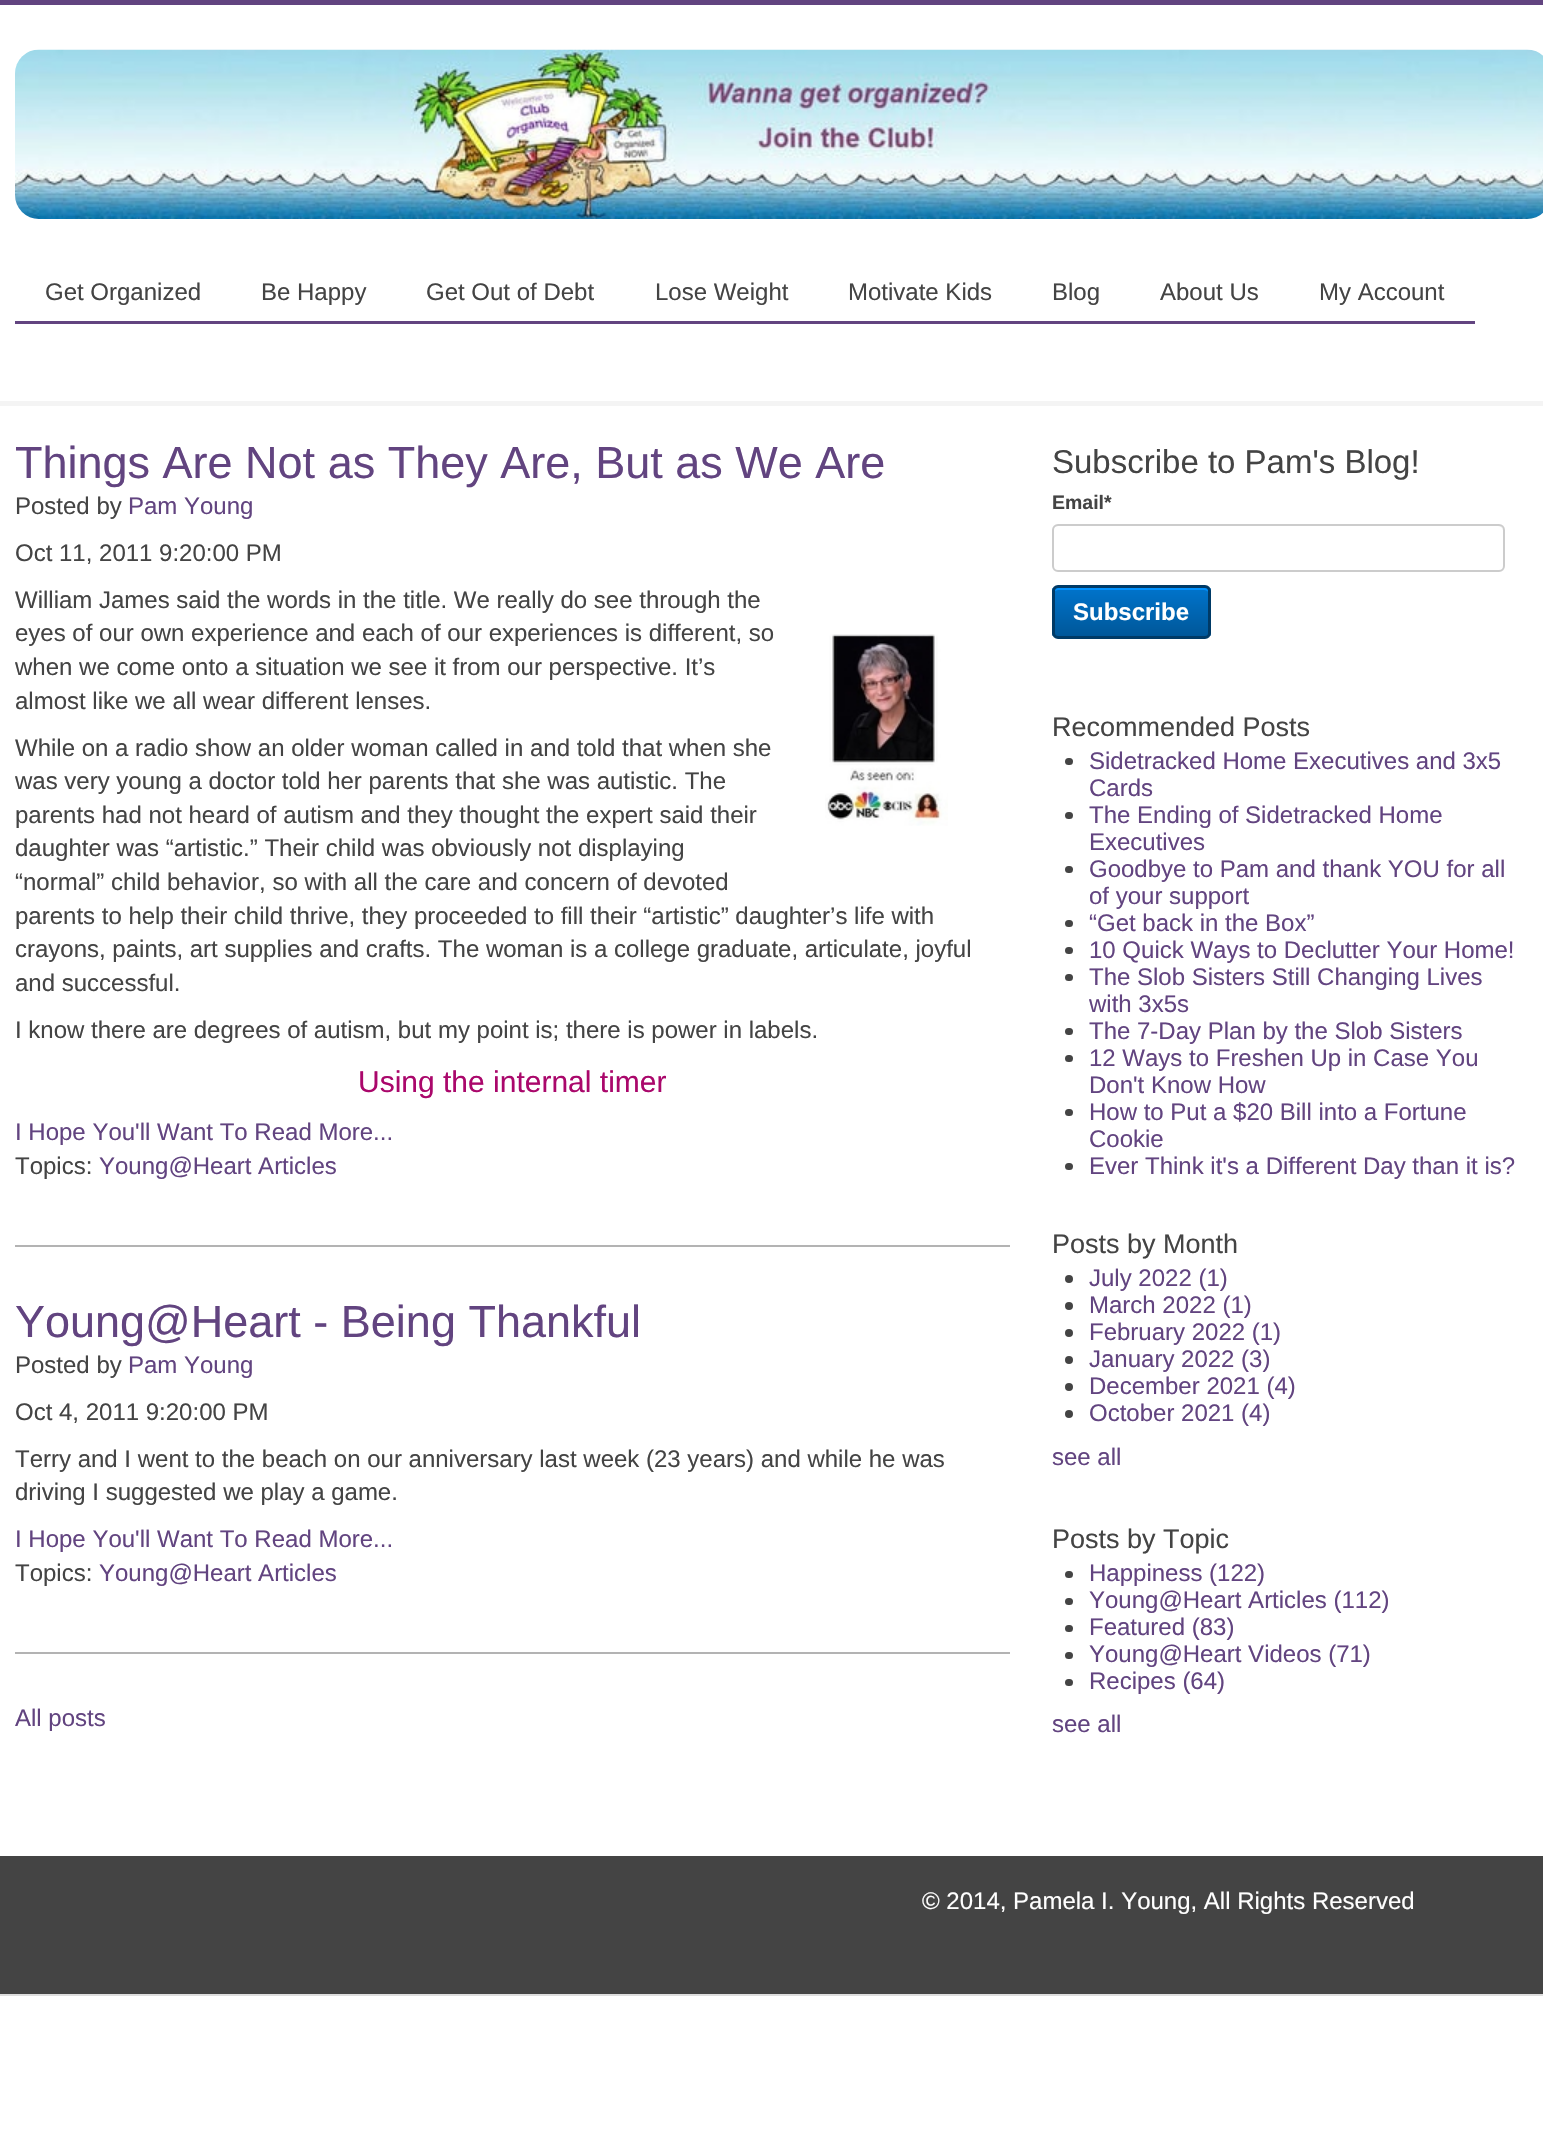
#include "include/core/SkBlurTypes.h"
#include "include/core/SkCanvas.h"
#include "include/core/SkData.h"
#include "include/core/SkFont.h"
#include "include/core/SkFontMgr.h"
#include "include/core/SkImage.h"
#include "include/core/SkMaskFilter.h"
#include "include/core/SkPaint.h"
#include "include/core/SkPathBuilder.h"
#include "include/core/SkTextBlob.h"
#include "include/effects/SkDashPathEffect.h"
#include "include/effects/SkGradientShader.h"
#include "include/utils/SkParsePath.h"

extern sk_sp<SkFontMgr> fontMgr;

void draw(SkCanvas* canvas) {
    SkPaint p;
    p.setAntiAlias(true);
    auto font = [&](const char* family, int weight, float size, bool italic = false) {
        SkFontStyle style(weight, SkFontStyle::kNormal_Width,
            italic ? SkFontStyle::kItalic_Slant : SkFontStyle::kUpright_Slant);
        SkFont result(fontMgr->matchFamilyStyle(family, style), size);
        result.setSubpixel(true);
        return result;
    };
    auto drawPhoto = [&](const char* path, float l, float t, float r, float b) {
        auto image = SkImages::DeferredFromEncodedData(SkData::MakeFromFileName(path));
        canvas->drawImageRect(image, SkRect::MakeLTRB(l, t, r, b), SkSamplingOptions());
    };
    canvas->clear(0xFFFFFFFF);
    p.setColor(0xFF624480);
    canvas->drawRect(SkRect::MakeLTRB(0, 0, 1543, 5), p);
    p.setColor(0xFFF4F4F4);
    canvas->drawRect(SkRect::MakeLTRB(0, 401, 1543, 406), p);
    drawPhoto("media/1.png", 15, 49, 1543, 219);
    p.setColor(0xFF624480);
    canvas->drawRect(SkRect::MakeLTRB(15, 321, 1130, 324), p);
    auto font1 = font("Liberation Sans", 400, 24);
    p.setColor(0xFF444444);
    {
        const struct { const char* s; float x, y; } items[] = {
            {"Get Organized", 45, 300},
            {"Be Happy", 261, 300},
            {"Get Out of Debt", 426, 300},
            {"Lose Weight", 655, 300},
            {"Motivate Kids", 848, 300},
            {"Blog", 1052, 300},
            {"About Us", 1160, 300},
        };
        for (auto [s, x, y] : items) {
            canvas->drawString(s, x, y, font1, p);
        }
    }
    p.setColor(0xFF624480);
    canvas->drawRect(SkRect::MakeLTRB(1130, 321, 1475, 324), p);
    p.setColor(0xFF444444);
    canvas->drawString("My Account", 1319, 300, font1, p);
    p.setColor(0xFFB3B3B3);
    canvas->drawRect(SkRect::MakeLTRB(15, 1245, 1010, 1247), p);
    auto font2 = font("Liberation Sans", 400, 45);
    p.setColor(0xFF624480);
    canvas->drawString("Things Are Not as They Are, But as We Are", 15, 478, font2, p);
    p.setColor(0xFF444444);
    canvas->drawString("Posted by", 15, 514, font1, p);
    p.setColor(0xFF624480);
    canvas->drawString("Pam Young", 128, 514, font1, p);
    p.setColor(0xFF444444);
    {
        const struct { const char* s; float x, y; } items[] = {
            {"Oct 11, 2011 9:20:00 PM", 15, 561},
            {"William James said the words in the title. We really do see through the", 15, 608},
            {"eyes of our own experience and each of our experiences is different, so", 15, 641},
        };
        for (auto [s, x, y] : items) {
            canvas->drawString(s, x, y, font1, p);
        }
    }
    drawPhoto("media/2.png", 825, 634, 948, 826);
    {
        const struct { const char* s; float x, y; } items[] = {
            {"when we come onto a situation we see it from our perspective. It’s", 15, 675},
            {"almost like we all wear different lenses.", 15, 709},
            {"While on a radio show an older woman called in and told that when she", 15, 756},
            {"was very young a doctor told her parents that she was autistic. The", 15, 789},
            {"parents had not heard of autism and they thought the expert said their", 15, 823},
            {"daughter was “artistic.” Their child was obviously not displaying", 15, 856},
            {"“normal” child behavior, so with all the care and concern of devoted", 15, 890},
            {"parents to help their child thrive, they proceeded to fill their “artistic” daughter’s life with", 15, 924},
            {"crayons, paints, art supplies and crafts. The woman is a college graduate, articulate, joyful", 15, 957},
            {"and successful.", 15, 991},
            {"I know there are degrees of autism, but my point is; there is power in labels.", 15, 1038},
        };
        for (auto [s, x, y] : items) {
            canvas->drawString(s, x, y, font1, p);
        }
    }
    auto font3 = font("Liberation Sans", 400, 30);
    p.setColor(0xFFAA076B);
    canvas->drawString("Using the internal timer", 358, 1092, font3, p);
    p.setColor(0xFF624480);
    canvas->drawString("I Hope You'll Want To Read More...", 15, 1140, font1, p);
    p.setColor(0xFF444444);
    canvas->drawString("Topics:", 15, 1174, font1, p);
    p.setColor(0xFF624480);
    canvas->drawString("Young@Heart Articles", 99, 1174, font1, p);
    p.setColor(0xFFB3B3B3);
    canvas->drawRect(SkRect::MakeLTRB(15, 1652, 1010, 1654), p);
    p.setColor(0xFF624480);
    canvas->drawString("Young@Heart - Being Thankful", 15, 1337, font2, p);
    p.setColor(0xFF444444);
    canvas->drawString("Posted by", 15, 1373, font1, p);
    p.setColor(0xFF624480);
    canvas->drawString("Pam Young", 128, 1373, font1, p);
    p.setColor(0xFF444444);
    {
        const struct { const char* s; float x, y; } items[] = {
            {"Oct 4, 2011 9:20:00 PM", 15, 1420},
            {"Terry and I went to the beach on our anniversary last week (23 years) and while he was", 15, 1467},
            {"driving I suggested we play a game.", 15, 1500},
        };
        for (auto [s, x, y] : items) {
            canvas->drawString(s, x, y, font1, p);
        }
    }
    p.setColor(0xFF624480);
    canvas->drawString("I Hope You'll Want To Read More...", 15, 1547, font1, p);
    p.setColor(0xFF444444);
    canvas->drawString("Topics:", 15, 1581, font1, p);
    p.setColor(0xFF624480);
    canvas->drawString("Young@Heart Articles", 99, 1581, font1, p);
    canvas->drawString("All posts", 15, 1726, font1, p);
    auto font4 = font("Liberation Sans", 400, 33);
    p.setColor(0xFF444444);
    canvas->drawString("Subscribe to Pam's Blog!", 1052, 473, font4, p);
    auto font5 = font("Liberation Sans", 700, 19.5f);
    canvas->drawString("Email*", 1052, 509, font5, p);
    p.setColor(0xFFECECEC);
    canvas->drawPath(SkPathBuilder().moveTo(1058, 526).lineTo(1498, 526).cubicTo(1501, 526, 1503, 529, 1503, 531).cubicTo(1503, 528, 1501, 525, 1498, 525).lineTo(1058, 525).cubicTo(1055, 525, 1053, 528, 1053, 531).cubicTo(1053, 529, 1055, 526, 1058, 526).close().detach(), p);
    p.setStyle(SkPaint::kStroke_Style);
    p.setStrokeWidth(2);
    p.setColor(0xFFCCCCCC);
    canvas->drawRoundRect(SkRect::MakeLTRB(1053, 525, 1504, 571), 5, 5, p);
    canvas->save();
    canvas->clipPath(SkPathBuilder().moveTo(1058, 585).lineTo(1205, 585).cubicTo(1208.5f, 585, 1211, 587.5f, 1211, 591).lineTo(1211, 633).cubicTo(1211, 636.5f, 1208.5f, 639, 1205, 639).lineTo(1058, 639).cubicTo(1054.5f, 639, 1052, 636.5f, 1052, 633).lineTo(1052, 591).cubicTo(1052, 587.5f, 1054.5f, 585, 1058, 585).close().detach(), true);
    p.setStyle(SkPaint::kFill_Style);
    {
        const SkColor colors[] = {0xFF0074CC, 0xFF005799};
        const float stops[] = {0, 1};
        const SkPoint ends[] = {{1131, 588}, {1131, 636}};
        p.setShader(SkGradientShader::MakeLinear(ends, colors, stops, 2, SkTileMode::kClamp));
        p.setAlpha(255);
    }
    canvas->drawRect(SkRect::MakeLTRB(1052, 588, 1211, 636), p);
    canvas->restore();
    p.setShader(nullptr);
    p.setColor(0xFF0091FF);
    canvas->drawPath(SkPathBuilder().moveTo(1058, 590).lineTo(1204, 590).cubicTo(1206, 590, 1208, 591, 1208, 592).lineTo(1208, 591).cubicTo(1208, 589, 1207, 588, 1205, 588).lineTo(1058, 588).cubicTo(1056, 588, 1055, 589, 1055, 591).close().detach(), p);
    p.setStyle(SkPaint::kStroke_Style);
    p.setStrokeWidth(3);
    p.setColor(0xFF003A66);
    canvas->drawRoundRect(SkRect::MakeLTRB(1053.5f, 586.5f, 1209.5f, 637.5f), 4.5f, 4.5f, p);
    auto font6 = font("Liberation Sans", 700, 24);
    p.setStyle(SkPaint::kFill_Style);
    p.setColor(0xFFFFFFFF);
    canvas->drawString("Subscribe", 1073, 620, font6, p);
    auto font7 = font("Liberation Sans", 400, 27);
    p.setColor(0xFF444444);
    canvas->drawString("Recommended Posts", 1052, 736, font7, p);
    canvas->drawRoundRect(SkRect::MakeLTRB(1065, 758, 1073, 765), 3.5f, 3.5f, p);
    p.setColor(0xFF624480);
    canvas->drawString("Sidetracked Home Executives and 3x5", 1089, 769, font1, p);
    canvas->drawString("Cards", 1089, 796, font1, p);
    p.setColor(0xFF444444);
    canvas->drawRoundRect(SkRect::MakeLTRB(1065, 812, 1073, 819), 3.5f, 3.5f, p);
    p.setColor(0xFF624480);
    canvas->drawString("The Ending of Sidetracked Home", 1089, 823, font1, p);
    canvas->drawString("Executives", 1089, 850, font1, p);
    p.setColor(0xFF444444);
    canvas->drawRoundRect(SkRect::MakeLTRB(1065, 866, 1073, 873), 3.5f, 3.5f, p);
    p.setColor(0xFF624480);
    canvas->drawString("Goodbye to Pam and thank YOU for all", 1089, 877, font1, p);
    canvas->drawString("of your support", 1089, 904, font1, p);
    p.setColor(0xFF444444);
    canvas->drawRoundRect(SkRect::MakeLTRB(1065, 920, 1073, 927), 3.5f, 3.5f, p);
    p.setColor(0xFF624480);
    canvas->drawString("“Get back in the Box”", 1089, 931, font1, p);
    p.setColor(0xFF444444);
    canvas->drawRoundRect(SkRect::MakeLTRB(1065, 947, 1073, 954), 3.5f, 3.5f, p);
    p.setColor(0xFF624480);
    canvas->drawString("10 Quick Ways to Declutter Your Home!", 1089, 958, font1, p);
    p.setColor(0xFF444444);
    canvas->drawRoundRect(SkRect::MakeLTRB(1065, 974, 1073, 981), 3.5f, 3.5f, p);
    p.setColor(0xFF624480);
    canvas->drawString("The Slob Sisters Still Changing Lives", 1089, 985, font1, p);
    canvas->drawString("with 3x5s", 1089, 1012, font1, p);
    p.setColor(0xFF444444);
    canvas->drawRoundRect(SkRect::MakeLTRB(1065, 1028, 1073, 1035), 3.5f, 3.5f, p);
    p.setColor(0xFF624480);
    canvas->drawString("The 7-Day Plan by the Slob Sisters", 1089, 1039, font1, p);
    p.setColor(0xFF444444);
    canvas->drawRoundRect(SkRect::MakeLTRB(1065, 1055, 1073, 1062), 3.5f, 3.5f, p);
    p.setColor(0xFF624480);
    canvas->drawString("12 Ways to Freshen Up in Case You", 1089, 1066, font1, p);
    canvas->drawString("Don't Know How", 1089, 1093, font1, p);
    p.setColor(0xFF444444);
    canvas->drawRoundRect(SkRect::MakeLTRB(1065, 1109, 1073, 1116), 3.5f, 3.5f, p);
    p.setColor(0xFF624480);
    canvas->drawString("How to Put a $20 Bill into a Fortune", 1089, 1120, font1, p);
    canvas->drawString("Cookie", 1089, 1147, font1, p);
    p.setColor(0xFF444444);
    canvas->drawRoundRect(SkRect::MakeLTRB(1065, 1163, 1073, 1170), 3.5f, 3.5f, p);
    p.setColor(0xFF624480);
    canvas->drawString("Ever Think it's a Different Day than it is?", 1089, 1174, font1, p);
    p.setColor(0xFF444444);
    canvas->drawString("Posts by Month", 1052, 1253, font7, p);
    canvas->drawCircle(1069, 1279, 4, p);
    p.setColor(0xFF624480);
    canvas->drawString("July 2022 (1)", 1089, 1286, font1, p);
    p.setColor(0xFF444444);
    canvas->drawCircle(1069, 1306, 4, p);
    p.setColor(0xFF624480);
    canvas->drawString("March 2022 (1)", 1089, 1313, font1, p);
    p.setColor(0xFF444444);
    canvas->drawCircle(1069, 1333, 4, p);
    p.setColor(0xFF624480);
    canvas->drawString("February 2022 (1)", 1089, 1340, font1, p);
    p.setColor(0xFF444444);
    canvas->drawCircle(1069, 1360, 4, p);
    p.setColor(0xFF624480);
    canvas->drawString("January 2022 (3)", 1089, 1367, font1, p);
    p.setColor(0xFF444444);
    canvas->drawCircle(1069, 1387, 4, p);
    p.setColor(0xFF624480);
    canvas->drawString("December 2021 (4)", 1089, 1394, font1, p);
    p.setColor(0xFF444444);
    canvas->drawCircle(1069, 1414, 4, p);
    p.setColor(0xFF624480);
    canvas->drawString("October 2021 (4)", 1089, 1421, font1, p);
    canvas->drawString("see all", 1052, 1465, font1, p);
    p.setColor(0xFF444444);
    canvas->drawString("Posts by Topic", 1052, 1548, font7, p);
    canvas->drawRoundRect(SkRect::MakeLTRB(1065, 1571, 1073, 1578), 3.5f, 3.5f, p);
    p.setColor(0xFF624480);
    canvas->drawString("Happiness (122)", 1089, 1581, font1, p);
    p.setColor(0xFF444444);
    canvas->drawRoundRect(SkRect::MakeLTRB(1065, 1598, 1073, 1605), 3.5f, 3.5f, p);
    p.setColor(0xFF624480);
    canvas->drawString("Young@Heart Articles (112)", 1089, 1608, font1, p);
    p.setColor(0xFF444444);
    canvas->drawRoundRect(SkRect::MakeLTRB(1065, 1625, 1073, 1632), 3.5f, 3.5f, p);
    p.setColor(0xFF624480);
    canvas->drawString("Featured (83)", 1089, 1635, font1, p);
    p.setColor(0xFF444444);
    canvas->drawRoundRect(SkRect::MakeLTRB(1065, 1652, 1073, 1659), 3.5f, 3.5f, p);
    p.setColor(0xFF624480);
    canvas->drawString("Young@Heart Videos (71)", 1089, 1662, font1, p);
    p.setColor(0xFF444444);
    canvas->drawRoundRect(SkRect::MakeLTRB(1065, 1679, 1073, 1686), 3.5f, 3.5f, p);
    p.setColor(0xFF624480);
    canvas->drawString("Recipes (64)", 1089, 1689, font1, p);
    canvas->drawString("see all", 1052, 1732, font1, p);
    p.setColor(0xFF444444);
    canvas->drawRect(SkRect::MakeLTRB(0, 1856, 1543, 1994), p);
    p.setColor(0xFFDDDDDD);
    canvas->drawRect(SkRect::MakeLTRB(0, 1994, 1543, 1996), p);
    p.setColor(0xFFFFFFFF);
    canvas->drawString("© 2014, Pamela I. Young, All Rights Reserved", 922, 1909, font1, p);
}
